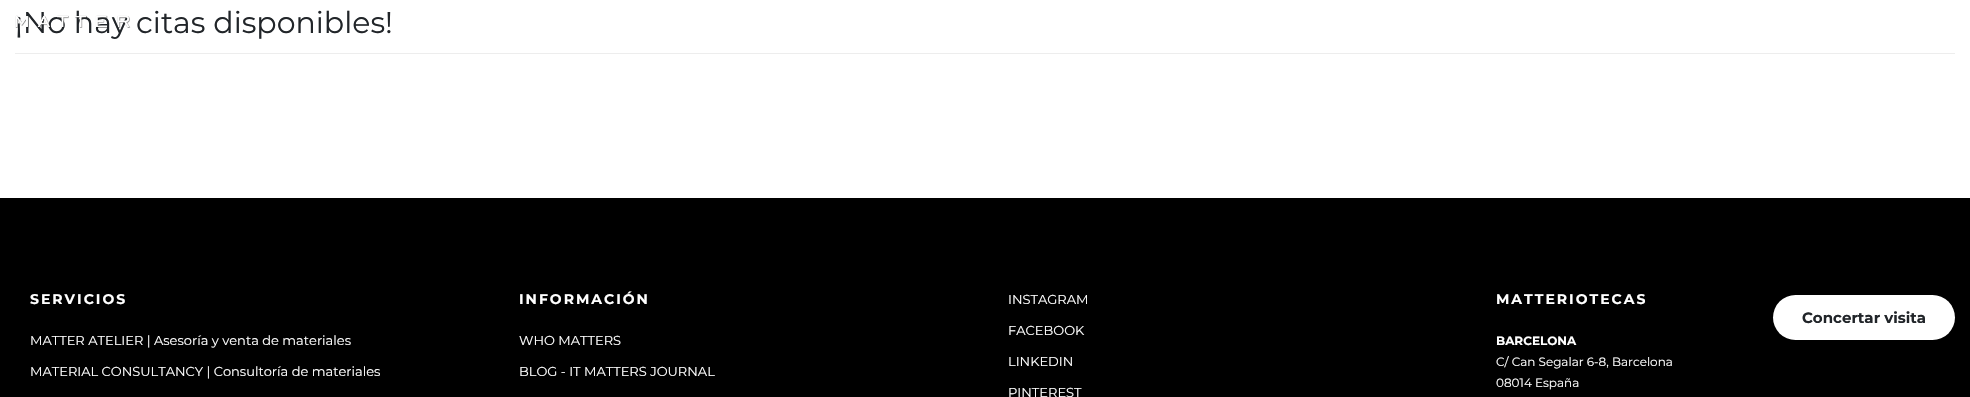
#include "include/core/SkBlurTypes.h"
#include "include/core/SkCanvas.h"
#include "include/core/SkData.h"
#include "include/core/SkFont.h"
#include "include/core/SkFontMgr.h"
#include "include/core/SkImage.h"
#include "include/core/SkMaskFilter.h"
#include "include/core/SkPaint.h"
#include "include/core/SkPathBuilder.h"
#include "include/core/SkTextBlob.h"
#include "include/effects/SkDashPathEffect.h"
#include "include/effects/SkGradientShader.h"
#include "include/utils/SkParsePath.h"

extern sk_sp<SkFontMgr> fontMgr;

void draw(SkCanvas* canvas) {
    SkPaint p;
    p.setAntiAlias(true);
    auto font = [&](const char* family, int weight, float size, bool italic = false) {
        SkFontStyle style(weight, SkFontStyle::kNormal_Width,
            italic ? SkFontStyle::kItalic_Slant : SkFontStyle::kUpright_Slant);
        SkFont result(fontMgr->matchFamilyStyle(family, style), size);
        result.setSubpixel(true);
        return result;
    };
    auto drawTracked = [&](const char* s, float x, float y, const SkFont& font, const SkPaint& ink, float letter, float word) {
        std::vector<SkGlyphID> glyphs(font.countText(s, strlen(s), SkTextEncoding::kUTF8));
        std::vector<float> xs(glyphs.size());
        font.textToGlyphs(s, strlen(s), SkTextEncoding::kUTF8, glyphs);
        font.getXPos(glyphs, xs, x);
        float extra = 0;
        for (size_t i = 0; i < glyphs.size(); i++) {
            xs[i] += extra;
            extra += letter + word * (glyphs[i] == font.unicharToGlyph(' '));
        }
        canvas->drawTextBlob(SkTextBlob::MakeFromPosHGlyphs(glyphs, xs, y, font), 0, 0, ink);
    };
    auto drawPhoto = [&](const char* path, float l, float t, float r, float b) {
        auto image = SkImages::DeferredFromEncodedData(SkData::MakeFromFileName(path));
        canvas->drawImageRect(image, SkRect::MakeLTRB(l, t, r, b), SkSamplingOptions());
    };
    canvas->clear(0xFFFFFFFF);
    p.setColor(0xFFEDEDED);
    canvas->drawRect(SkRect::MakeLTRB(15, 53, 1955, 54), p);
    auto font1 = font("Montserrat", 400, 30);
    p.setColor(0xFF212529);
    canvas->drawString("¡No hay citas disponibles!", 15, 33, font1, p);
    p.setColor(0xFF000000);
    canvas->drawRect(SkRect::MakeLTRB(0, 198, 1970, 397), p);
    auto font2 = font("Montserrat", 700, 14);
    p.setColor(0xFFFFFFFF);
    drawTracked("SERVICIOS", 30, 304, font2, p, 2, 0);
    auto font3 = font("Montserrat", 400, 13);
    canvas->drawString("MATTER ATELIER | Asesoría y venta de materiales", 30, 345, font3, p);
    canvas->drawString("MATERIAL CONSULTANCY | Consultoría de materiales", 30, 376, font3, p);
    drawTracked("INFORMACIÓN", 519, 304, font2, p, 2, 0);
    {
        const struct { const char* s; float x, y; } items[] = {
            {"WHO MATTERS", 519, 345},
            {"BLOG - IT MATTERS JOURNAL", 519, 376},
            {"INSTAGRAM", 1008, 304},
            {"FACEBOOK", 1008, 335},
            {"LINKEDIN", 1008, 366},
            {"PINTEREST", 1008, 397},
        };
        for (auto [s, x, y] : items) {
            canvas->drawString(s, x, y, font3, p);
        }
    }
    drawTracked("MATTERIOTECAS", 1496, 304, font2, p, 2, 0);
    auto font4 = font("Montserrat", 700, 12);
    canvas->drawString("BARCELONA", 1496, 345, font4, p);
    auto font5 = font("Montserrat", 400, 12);
    canvas->drawString("C/ Can Segalar 6-8, Barcelona", 1496, 366, font5, p);
    canvas->drawString("08014 España", 1496, 387, font5, p);
    drawPhoto("media/1.png", 15, 15, 131, 28);
    canvas->drawRoundRect(SkRect::MakeLTRB(1773, 295, 1955, 340), 22.5f, 22.5f, p);
    auto font6 = font("Montserrat", 700, 15);
    p.setColor(0xFF212529);
    canvas->drawString("Concertar visita", 1802, 323, font6, p);
}
